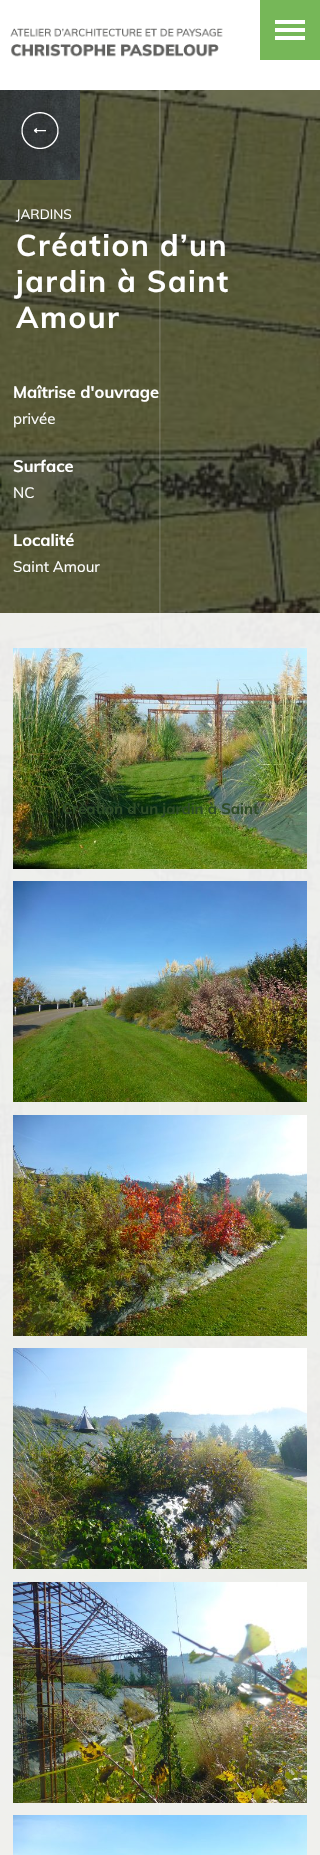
#include "include/core/SkBlurTypes.h"
#include "include/core/SkCanvas.h"
#include "include/core/SkData.h"
#include "include/core/SkFont.h"
#include "include/core/SkFontMgr.h"
#include "include/core/SkImage.h"
#include "include/core/SkMaskFilter.h"
#include "include/core/SkPaint.h"
#include "include/core/SkPathBuilder.h"
#include "include/core/SkTextBlob.h"
#include "include/effects/SkDashPathEffect.h"
#include "include/effects/SkGradientShader.h"
#include "include/utils/SkParsePath.h"

extern sk_sp<SkFontMgr> fontMgr;

void draw(SkCanvas* canvas) {
    SkPaint p;
    p.setAntiAlias(true);
    auto font = [&](const char* family, int weight, float size, bool italic = false) {
        SkFontStyle style(weight, SkFontStyle::kNormal_Width,
            italic ? SkFontStyle::kItalic_Slant : SkFontStyle::kUpright_Slant);
        SkFont result(fontMgr->matchFamilyStyle(family, style), size);
        result.setSubpixel(true);
        return result;
    };
    auto drawTracked = [&](const char* s, float x, float y, const SkFont& font, const SkPaint& ink, float letter, float word) {
        std::vector<SkGlyphID> glyphs(font.countText(s, strlen(s), SkTextEncoding::kUTF8));
        std::vector<float> xs(glyphs.size());
        font.textToGlyphs(s, strlen(s), SkTextEncoding::kUTF8, glyphs);
        font.getXPos(glyphs, xs, x);
        float extra = 0;
        for (size_t i = 0; i < glyphs.size(); i++) {
            xs[i] += extra;
            extra += letter + word * (glyphs[i] == font.unicharToGlyph(' '));
        }
        canvas->drawTextBlob(SkTextBlob::MakeFromPosHGlyphs(glyphs, xs, y, font), 0, 0, ink);
    };
    auto drawPhoto = [&](const char* path, float l, float t, float r, float b) {
        auto image = SkImages::DeferredFromEncodedData(SkData::MakeFromFileName(path));
        canvas->drawImageRect(image, SkRect::MakeLTRB(l, t, r, b), SkSamplingOptions());
    };
    canvas->clear(0xFFFFFFFF);
    drawPhoto("media/1.png", 10, 28, 223, 57);
    {
        const struct { float l, t, r, b; SkColor color; } items[] = {
            {260, 0, 320, 60, 0xFF76B758},
            {275, 28, 305, 32, 0xFFFFFFFF},
            {275, 20, 305, 24, 0xFFFFFFFF},
            {275, 36, 305, 40, 0xFFFFFFFF},
        };
        for (auto [l, t, r, b, color] : items) {
            p.setColor(color);
            canvas->drawRect(SkRect::MakeLTRB(l, t, r, b), p);
        }
    }
    drawPhoto("media/2.png", 0, 90, 320, 1855);
    drawPhoto("media/3.png", 159, 90, 161, 1815);
    drawPhoto("media/4.png", 0, 90, 80, 180);
    drawPhoto("media/5.png", 21, 112, 59, 149);
    auto font1 = font("Muli", 400, 13.5f);
    canvas->drawString("JARDINS", 16, 219, font1, p);
    auto font2 = font("Muli", 700, 30);
    {
        const struct { const char* s; float x, y; } items[] = {
            {"Création d’un", 16, 256},
            {"jardin à Saint", 16, 292},
            {"Amour", 16, 328},
        };
        for (auto [s, x, y] : items) {
            drawTracked(s, x, y, font2, p, 1.5f, 0);
        }
    }
    auto font3 = font("Muli", 700, 16.5f);
    canvas->drawString("Maîtrise d'ouvrage", 13, 398, font3, p);
    auto font4 = font("Muli", 400, 15);
    canvas->drawString("privée", 13, 424, font4, p);
    canvas->drawString("Surface", 13, 472, font3, p);
    canvas->drawString("NC", 13, 498, font4, p);
    canvas->drawString("Localité", 13, 546, font3, p);
    canvas->drawString("Saint Amour", 13, 572, font4, p);
    p.setColor(0xE6FFFFFF);
    canvas->drawRect(SkRect::MakeLTRB(0, 613, 320, 1855), p);
    drawPhoto("media/6.png", 13, 648, 307, 869);
    auto font5 = font("Muli", 700, 15);
    p.setColor(0xFF2F4C26);
    canvas->drawString("Création d’un jardin à Saint", 62, 814, font5, p);
    drawPhoto("media/7.png", 13, 881, 307, 1102);
    drawPhoto("media/8.png", 13, 1115, 307, 1336);
    drawPhoto("media/9.png", 13, 1348, 307, 1569);
    drawPhoto("media/10.png", 13, 1582, 307, 1803);
    drawPhoto("media/11.png", 13, 1815, 307, 1855);
}
